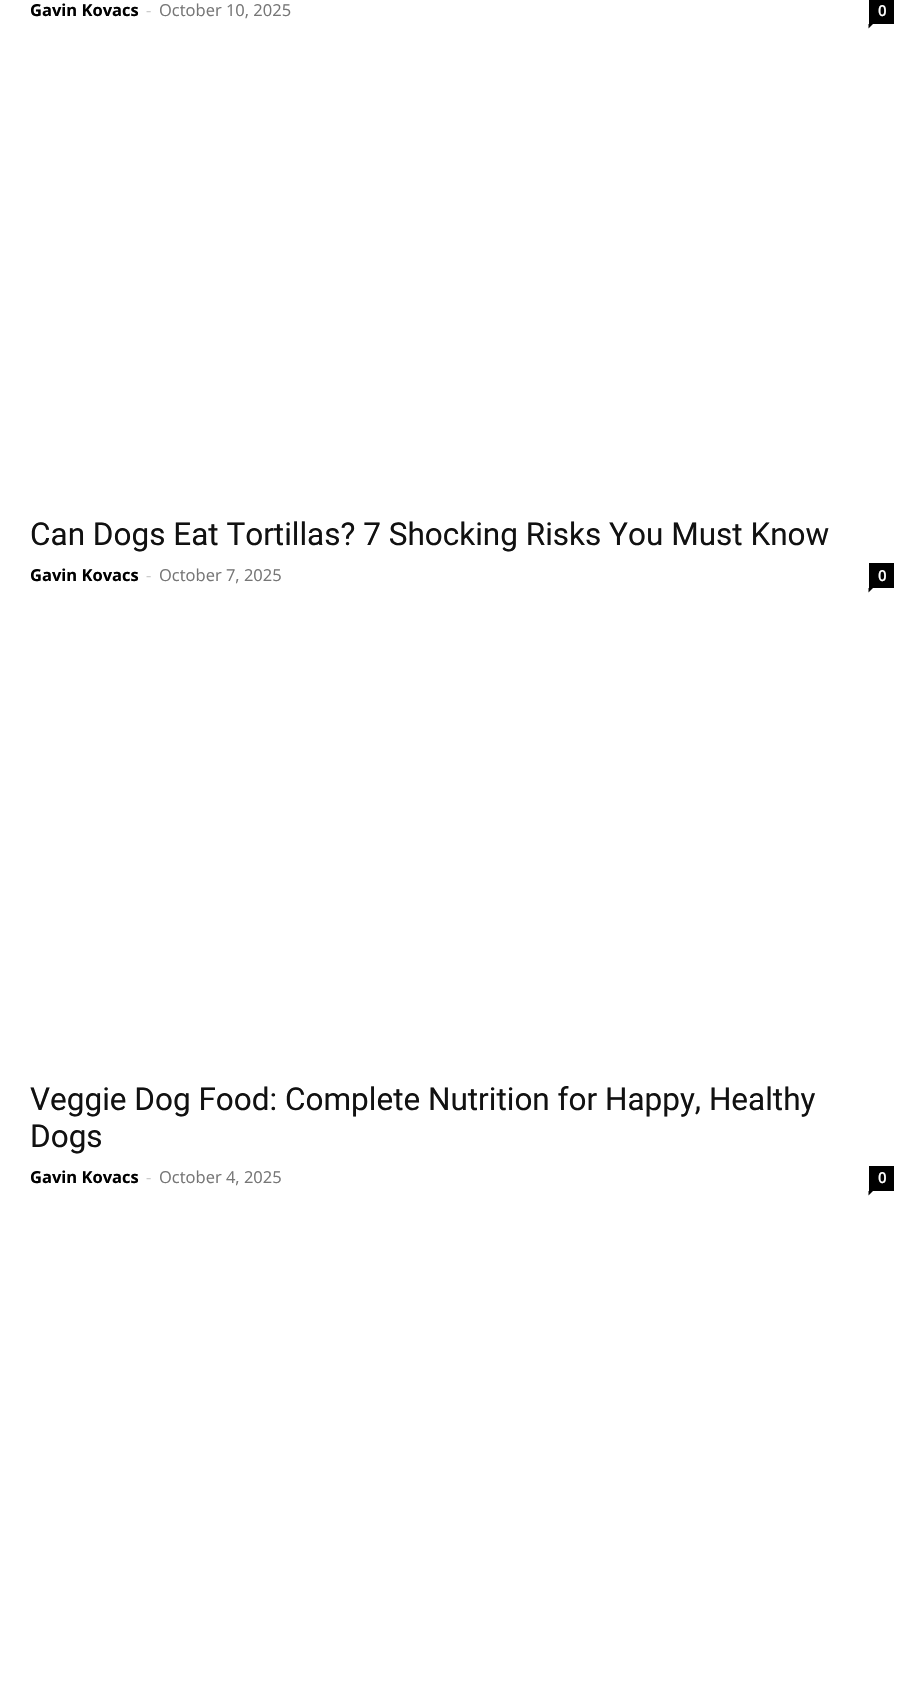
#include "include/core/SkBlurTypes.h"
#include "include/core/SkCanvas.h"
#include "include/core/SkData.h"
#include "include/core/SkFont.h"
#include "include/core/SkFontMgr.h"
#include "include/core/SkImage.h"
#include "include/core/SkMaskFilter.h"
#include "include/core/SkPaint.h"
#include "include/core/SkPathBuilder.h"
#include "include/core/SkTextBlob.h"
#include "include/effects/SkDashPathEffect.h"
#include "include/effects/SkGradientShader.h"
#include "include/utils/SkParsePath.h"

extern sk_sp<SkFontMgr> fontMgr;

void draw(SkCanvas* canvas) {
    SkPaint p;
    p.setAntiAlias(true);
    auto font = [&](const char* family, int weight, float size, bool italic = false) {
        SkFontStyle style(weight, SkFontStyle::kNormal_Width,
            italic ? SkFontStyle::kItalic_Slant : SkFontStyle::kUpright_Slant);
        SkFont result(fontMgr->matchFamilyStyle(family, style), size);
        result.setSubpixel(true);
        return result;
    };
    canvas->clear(0xFFFFFFFF);
    auto font1 = font("Open Sans", 700, 16.5f);
    p.setColor(0xFF000000);
    canvas->drawString("Gavin Kovacs", 30, 16, font1, p);
    auto font2 = font("Open Sans", 400, 16.5f);
    p.setColor(0xFFCCCCCC);
    canvas->drawString("-", 146, 16, font2, p);
    p.setColor(0xFF767676);
    canvas->drawString("October 10, 2025", 159, 16, font2, p);
    p.setColor(0xFF000000);
    canvas->drawRect(SkRect::MakeLTRB(869, 0, 894, 24), p);
    auto font3 = font("Open Sans", 600, 15);
    p.setColor(0xFFFFFFFF);
    canvas->drawString("0", 878, 16, font3, p);
    p.setColor(0xFF000000);
    canvas->drawPath(SkPathBuilder().moveTo(868.5f, 24).lineTo(873, 24).lineTo(868.5f, 28.5f).close().detach(), p);
    auto font4 = font("Roboto", 400, 31.5f);
    p.setColor(0xFF111111);
    canvas->drawString("Can Dogs Eat Tortillas? 7 Shocking Risks You Must Know", 30, 545, font4, p);
    p.setColor(0xFF000000);
    canvas->drawString("Gavin Kovacs", 30, 581, font1, p);
    p.setColor(0xFFCCCCCC);
    canvas->drawString("-", 146, 581, font2, p);
    p.setColor(0xFF767676);
    canvas->drawString("October 7, 2025", 159, 581, font2, p);
    p.setColor(0xFF000000);
    canvas->drawRect(SkRect::MakeLTRB(869, 563, 894, 588), p);
    p.setColor(0xFFFFFFFF);
    canvas->drawString("0", 878, 581, font3, p);
    p.setColor(0xFF000000);
    canvas->drawPath(SkPathBuilder().moveTo(868.5f, 588).lineTo(873, 588).lineTo(868.5f, 592.5f).close().detach(), p);
    p.setColor(0xFF111111);
    canvas->drawString("Veggie Dog Food: Complete Nutrition for Happy, Healthy", 30, 1110, font4, p);
    canvas->drawString("Dogs", 30, 1147, font4, p);
    p.setColor(0xFF000000);
    canvas->drawString("Gavin Kovacs", 30, 1183, font1, p);
    p.setColor(0xFFCCCCCC);
    canvas->drawString("-", 146, 1183, font2, p);
    p.setColor(0xFF767676);
    canvas->drawString("October 4, 2025", 159, 1183, font2, p);
    p.setColor(0xFF000000);
    canvas->drawRect(SkRect::MakeLTRB(869, 1166, 894, 1191), p);
    p.setColor(0xFFFFFFFF);
    canvas->drawString("0", 878, 1183, font3, p);
    p.setColor(0xFF000000);
    canvas->drawPath(SkPathBuilder().moveTo(868.5f, 1191).lineTo(873, 1191).lineTo(868.5f, 1195.5f).close().detach(), p);
}
